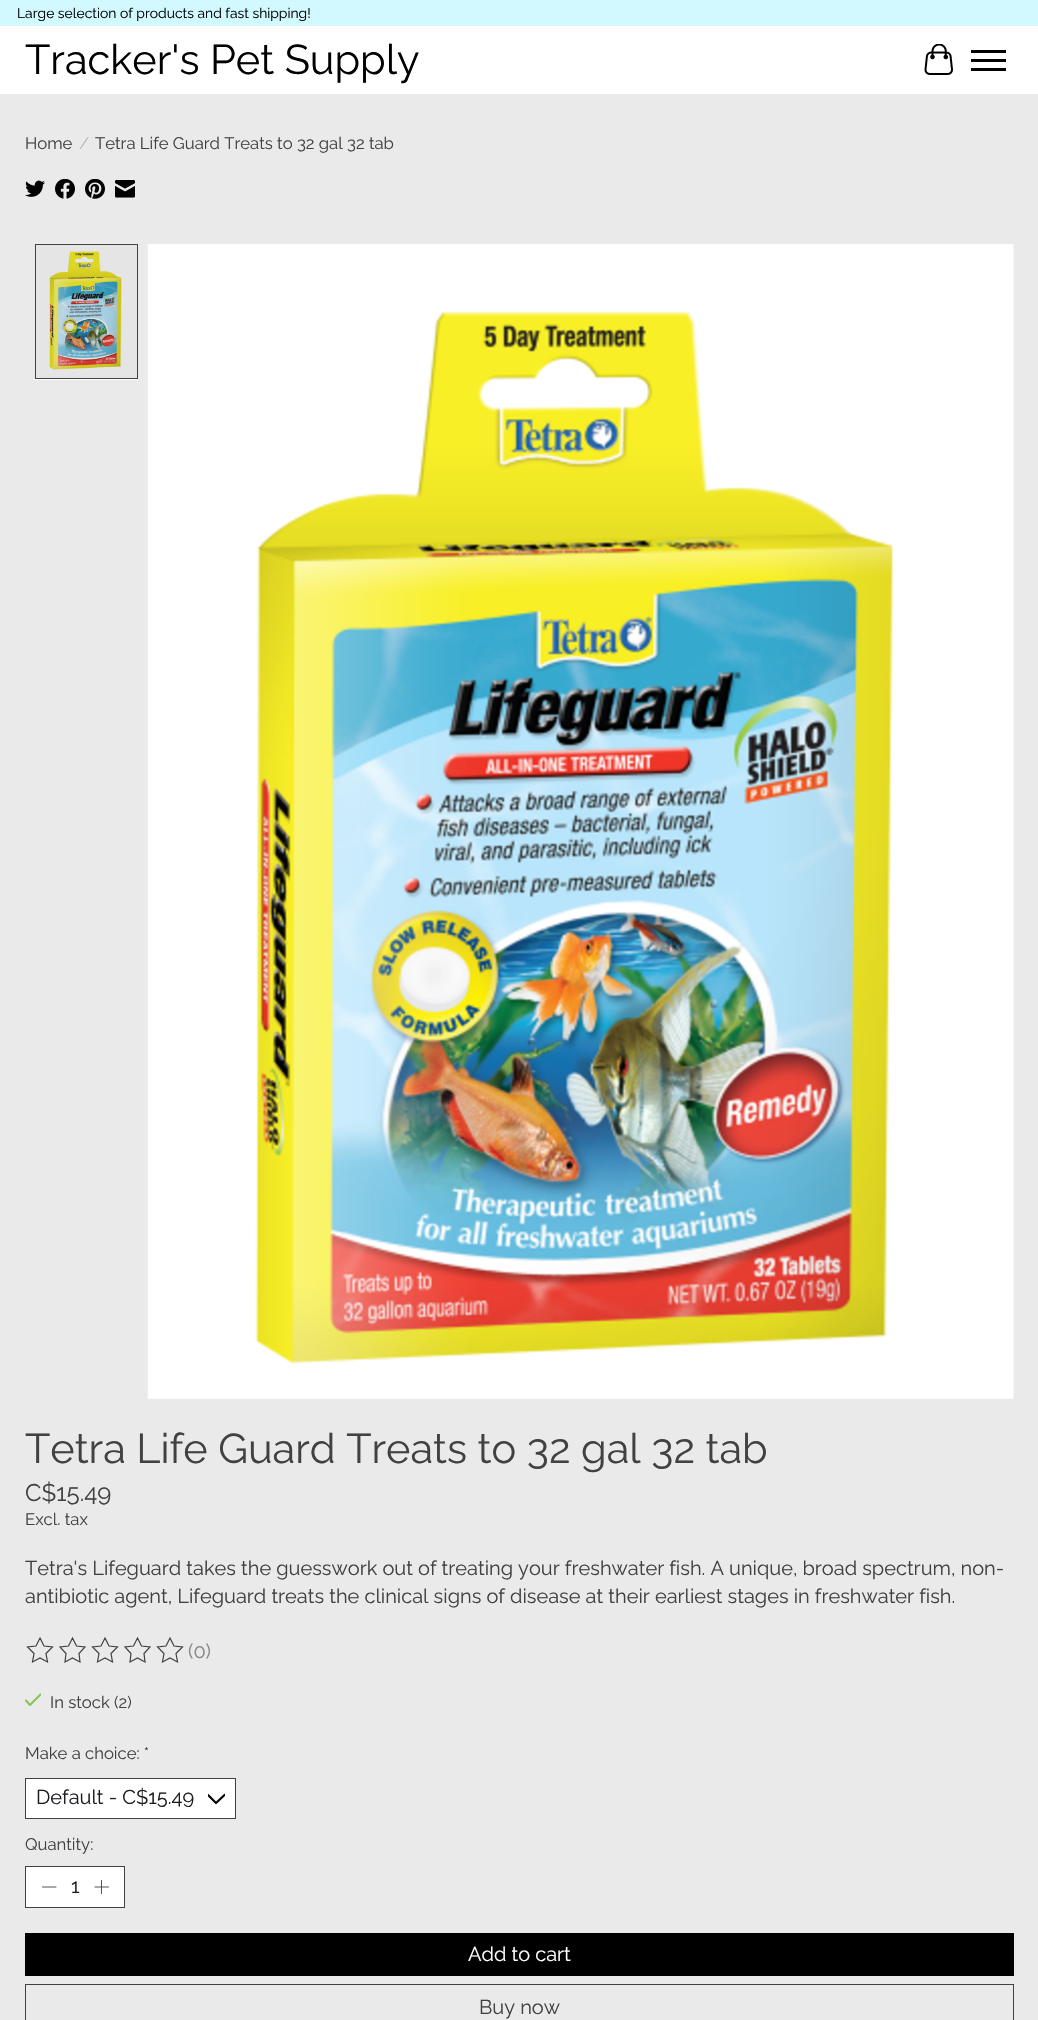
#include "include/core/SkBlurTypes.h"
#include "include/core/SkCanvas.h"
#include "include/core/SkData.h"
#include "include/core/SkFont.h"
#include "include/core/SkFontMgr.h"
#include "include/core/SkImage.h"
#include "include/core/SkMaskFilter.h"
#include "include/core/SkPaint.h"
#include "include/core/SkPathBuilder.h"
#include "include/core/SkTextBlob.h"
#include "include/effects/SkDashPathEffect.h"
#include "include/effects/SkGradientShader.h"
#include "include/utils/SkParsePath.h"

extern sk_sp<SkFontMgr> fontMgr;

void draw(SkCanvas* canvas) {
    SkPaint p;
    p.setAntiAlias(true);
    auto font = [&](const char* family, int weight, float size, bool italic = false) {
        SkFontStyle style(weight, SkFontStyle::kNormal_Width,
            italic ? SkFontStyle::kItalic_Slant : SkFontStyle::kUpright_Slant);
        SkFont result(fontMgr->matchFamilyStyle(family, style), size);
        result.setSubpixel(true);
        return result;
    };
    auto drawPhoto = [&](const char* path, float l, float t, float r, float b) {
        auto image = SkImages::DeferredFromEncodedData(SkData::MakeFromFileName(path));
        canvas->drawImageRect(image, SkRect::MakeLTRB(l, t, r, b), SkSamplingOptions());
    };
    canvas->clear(0xFFEAEAEA);
    p.setColor(0xFFFFFFFF);
    canvas->drawRect(SkRect::MakeLTRB(0, 26, 1038, 94), p);
    p.setColor(0xFFD1F9FF);
    canvas->drawRect(SkRect::MakeLTRB(0, 0, 1038, 26), p);
    auto font1 = font("Raleway", 400, 13.9f);
    p.setColor(0xFF000000);
    canvas->drawString("Large selection of products and fast shipping!", 17, 18, font1, p);
    auto font2 = font("Raleway", 400, 41.5f);
    canvas->drawString("Tracker's Pet Supply", 25, 74, font2, p);
    drawPhoto("media/1.png", 924, 44, 953, 75);
    {
        const struct { float l, t, r, b; SkColor color; } items[] = {
            {971, 59, 1006, 62, 0xFF000000},
            {971, 50, 1006, 53, 0xFF000000},
            {971, 68, 1006, 71, 0xFF000000},
        };
        for (auto [l, t, r, b, color] : items) {
            p.setColor(color);
            canvas->drawRect(SkRect::MakeLTRB(l, t, r, b), p);
        }
    }
    auto font3 = font("Raleway", 400, 16.7f);
    p.setColor(0xFF414141);
    canvas->drawString("Home", 25, 149, font3, p);
    p.setColor(0xFFB7B7B7);
    canvas->drawString("/", 79, 149, font3, p);
    p.setColor(0xFF414141);
    canvas->drawString("Tetra Life Guard Treats to 32 gal 32 tab", 95, 149, font3, p);
    drawPhoto("media/2.png", 25, 180, 45, 197);
    drawPhoto("media/3.png", 55, 179, 75, 199);
    drawPhoto("media/4.png", 85, 179, 105, 199);
    drawPhoto("media/5.png", 115, 180, 135, 198);
    drawPhoto("media/6.png", 35, 243, 138, 380);
    p.setStyle(SkPaint::kStroke_Style);
    p.setStrokeWidth(1);
    canvas->drawRect(SkRect::MakeLTRB(35.5f, 244.5f, 137.5f, 378.5f), p);
    drawPhoto("media/7.png", 147, 244, 1014, 1399);
    p.setStyle(SkPaint::kFill_Style);
    canvas->drawString("Tetra Life Guard Treats to 32 gal 32 tab", 25, 1463, font2, p);
    auto font4 = font("Raleway", 400, 24);
    canvas->drawString("C$15.49", 25, 1501, font4, p);
    canvas->drawString("Excl. tax", 25, 1525, font3, p);
    auto font5 = font("Raleway", 400, 20);
    canvas->drawString("Tetra's Lifeguard takes the guesswork out of treating your freshwater fish. A unique, broad spectrum, non-", 25, 1575, font5, p);
    canvas->drawString("antibiotic agent, Lifeguard treats the clinical signs of disease at their earliest stages in freshwater fish.", 25, 1603, font5, p);
    p.setStyle(SkPaint::kStroke_Style);
    p.setStrokeWidth(1.2f);
    canvas->drawPath(SkPathBuilder().moveTo(40, 1638).lineTo(44, 1646).lineTo(52.5f, 1647).lineTo(46, 1653.5f).lineTo(47.5f, 1662).lineTo(40, 1658).lineTo(32.5f, 1662).lineTo(34, 1653.5f).lineTo(27.5f, 1647).lineTo(36, 1646).close().moveTo(72.5f, 1638).lineTo(76.5f, 1646).lineTo(85, 1647).lineTo(79, 1653.5f).lineTo(80, 1662).lineTo(72.5f, 1658).lineTo(65, 1662).lineTo(66, 1653.5f).lineTo(60, 1647).lineTo(68.5f, 1646).close().detach(), p);
    canvas->drawPath(SkPathBuilder().moveTo(105, 1638).lineTo(109, 1646).lineTo(117.5f, 1647).lineTo(111, 1653.5f).lineTo(112.5f, 1662).lineTo(105, 1658).lineTo(97.5f, 1662).lineTo(99, 1653.5f).lineTo(92.5f, 1647).lineTo(101, 1646).close().moveTo(137.5f, 1638).lineTo(141.5f, 1646).lineTo(150, 1647).lineTo(144, 1653.5f).lineTo(145, 1662).lineTo(137.5f, 1658).lineTo(130, 1662).lineTo(131, 1653.5f).lineTo(125, 1647).lineTo(133.5f, 1646).close().detach(), p);
    canvas->drawPath(SkPathBuilder().moveTo(170, 1638).lineTo(174, 1646).lineTo(182.5f, 1647).lineTo(176, 1653.5f).lineTo(177.5f, 1662).lineTo(170, 1658).lineTo(162.5f, 1662).lineTo(164, 1653.5f).lineTo(157.5f, 1647).lineTo(166, 1646).close().detach(), p);
    p.setStyle(SkPaint::kFill_Style);
    p.setColor(0xFF858585);
    canvas->drawString("(0)", 188, 1658, font5, p);
    canvas->save();
    canvas->clipRect(SkRect::MakeLTRB(25, 1691, 41, 1708));
    p.setStyle(SkPaint::kStroke_Style);
    p.setStrokeWidth(2.1f);
    p.setStrokeCap(SkPaint::kRound_Cap);
    p.setStrokeJoin(SkPaint::kRound_Join);
    p.setColor(0xFF88C559);
    canvas->drawPath(SkPathBuilder().moveTo(26, 1700.5f).lineTo(30, 1705).lineTo(40.5f, 1694.5f).detach(), p);
    canvas->restore();
    p.setStyle(SkPaint::kFill_Style);
    p.setColor(0xFF414141);
    canvas->drawString("In stock (2)", 50, 1708, font3, p);
    canvas->drawString("Make a choice: *", 25, 1759, font3, p);
    p.setColor(0xFFFFFFFF);
    canvas->drawRect(SkRect::MakeLTRB(26, 1779, 235, 1818), p);
    canvas->save();
    canvas->clipRect(SkRect::MakeLTRB(208, 1790, 225, 1808));
    p.setStyle(SkPaint::kStroke_Style);
    p.setStrokeWidth(2.2f);
    p.setColor(0xFF000000);
    canvas->drawPath(SkPathBuilder().moveTo(224.5f, 1795).lineTo(216, 1803).lineTo(208, 1795).detach(), p);
    canvas->restore();
    p.setStrokeWidth(1);
    p.setStrokeCap(SkPaint::kButt_Cap);
    p.setStrokeJoin(SkPaint::kMiter_Join);
    p.setColor(0xFF414141);
    canvas->drawRect(SkRect::MakeLTRB(25.5f, 1778.5f, 235.5f, 1818.5f), p);
    p.setStyle(SkPaint::kFill_Style);
    p.setColor(0xFF1C1C21);
    canvas->drawString("Default - C$15.49", 36, 1804, font5, p);
    p.setColor(0xFF414141);
    canvas->drawString("Quantity:", 25, 1850, font3, p);
    p.setColor(0xFFFFFFFF);
    canvas->drawRect(SkRect::MakeLTRB(25.5f, 1866.5f, 124.5f, 1907.5f), p);
    p.setStyle(SkPaint::kStroke_Style);
    p.setColor(0xFF414141);
    canvas->drawRect(SkRect::MakeLTRB(25.5f, 1866.5f, 124.5f, 1907.5f), p);
    p.setStrokeWidth(0.9f);
    p.setStrokeCap(SkPaint::kRound_Cap);
    p.setStrokeJoin(SkPaint::kRound_Join);
    canvas->drawPath(SkPathBuilder().moveTo(42.5f, 1887).lineTo(56, 1887).detach(), p);
    p.setStyle(SkPaint::kFill_Style);
    p.setColor(0xFF1C1C21);
    canvas->drawString("1", 71, 1893, font5, p);
    p.setStyle(SkPaint::kStroke_Style);
    p.setColor(0xFF414141);
    canvas->drawPath(SkPathBuilder().moveTo(101.5f, 1880.5f).lineTo(101.5f, 1893.5f).moveTo(95, 1887).lineTo(108.5f, 1887).detach(), p);
    p.setStyle(SkPaint::kFill_Style);
    p.setColor(0xFF000000);
    canvas->drawRect(SkRect::MakeLTRB(25, 1933, 1014, 1976), p);
    p.setColor(0xFFFFFFFF);
    canvas->drawString("Add to cart", 468, 1961, font5, p);
    p.setStyle(SkPaint::kStroke_Style);
    p.setStrokeWidth(1);
    p.setStrokeCap(SkPaint::kButt_Cap);
    p.setStrokeJoin(SkPaint::kMiter_Join);
    p.setColor(0xFF414141);
    canvas->drawRect(SkRect::MakeLTRB(25.5f, 1984.5f, 1013.5f, 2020.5f), p);
    p.setStyle(SkPaint::kFill_Style);
    canvas->drawString("Buy now", 479, 2014, font5, p);
}
